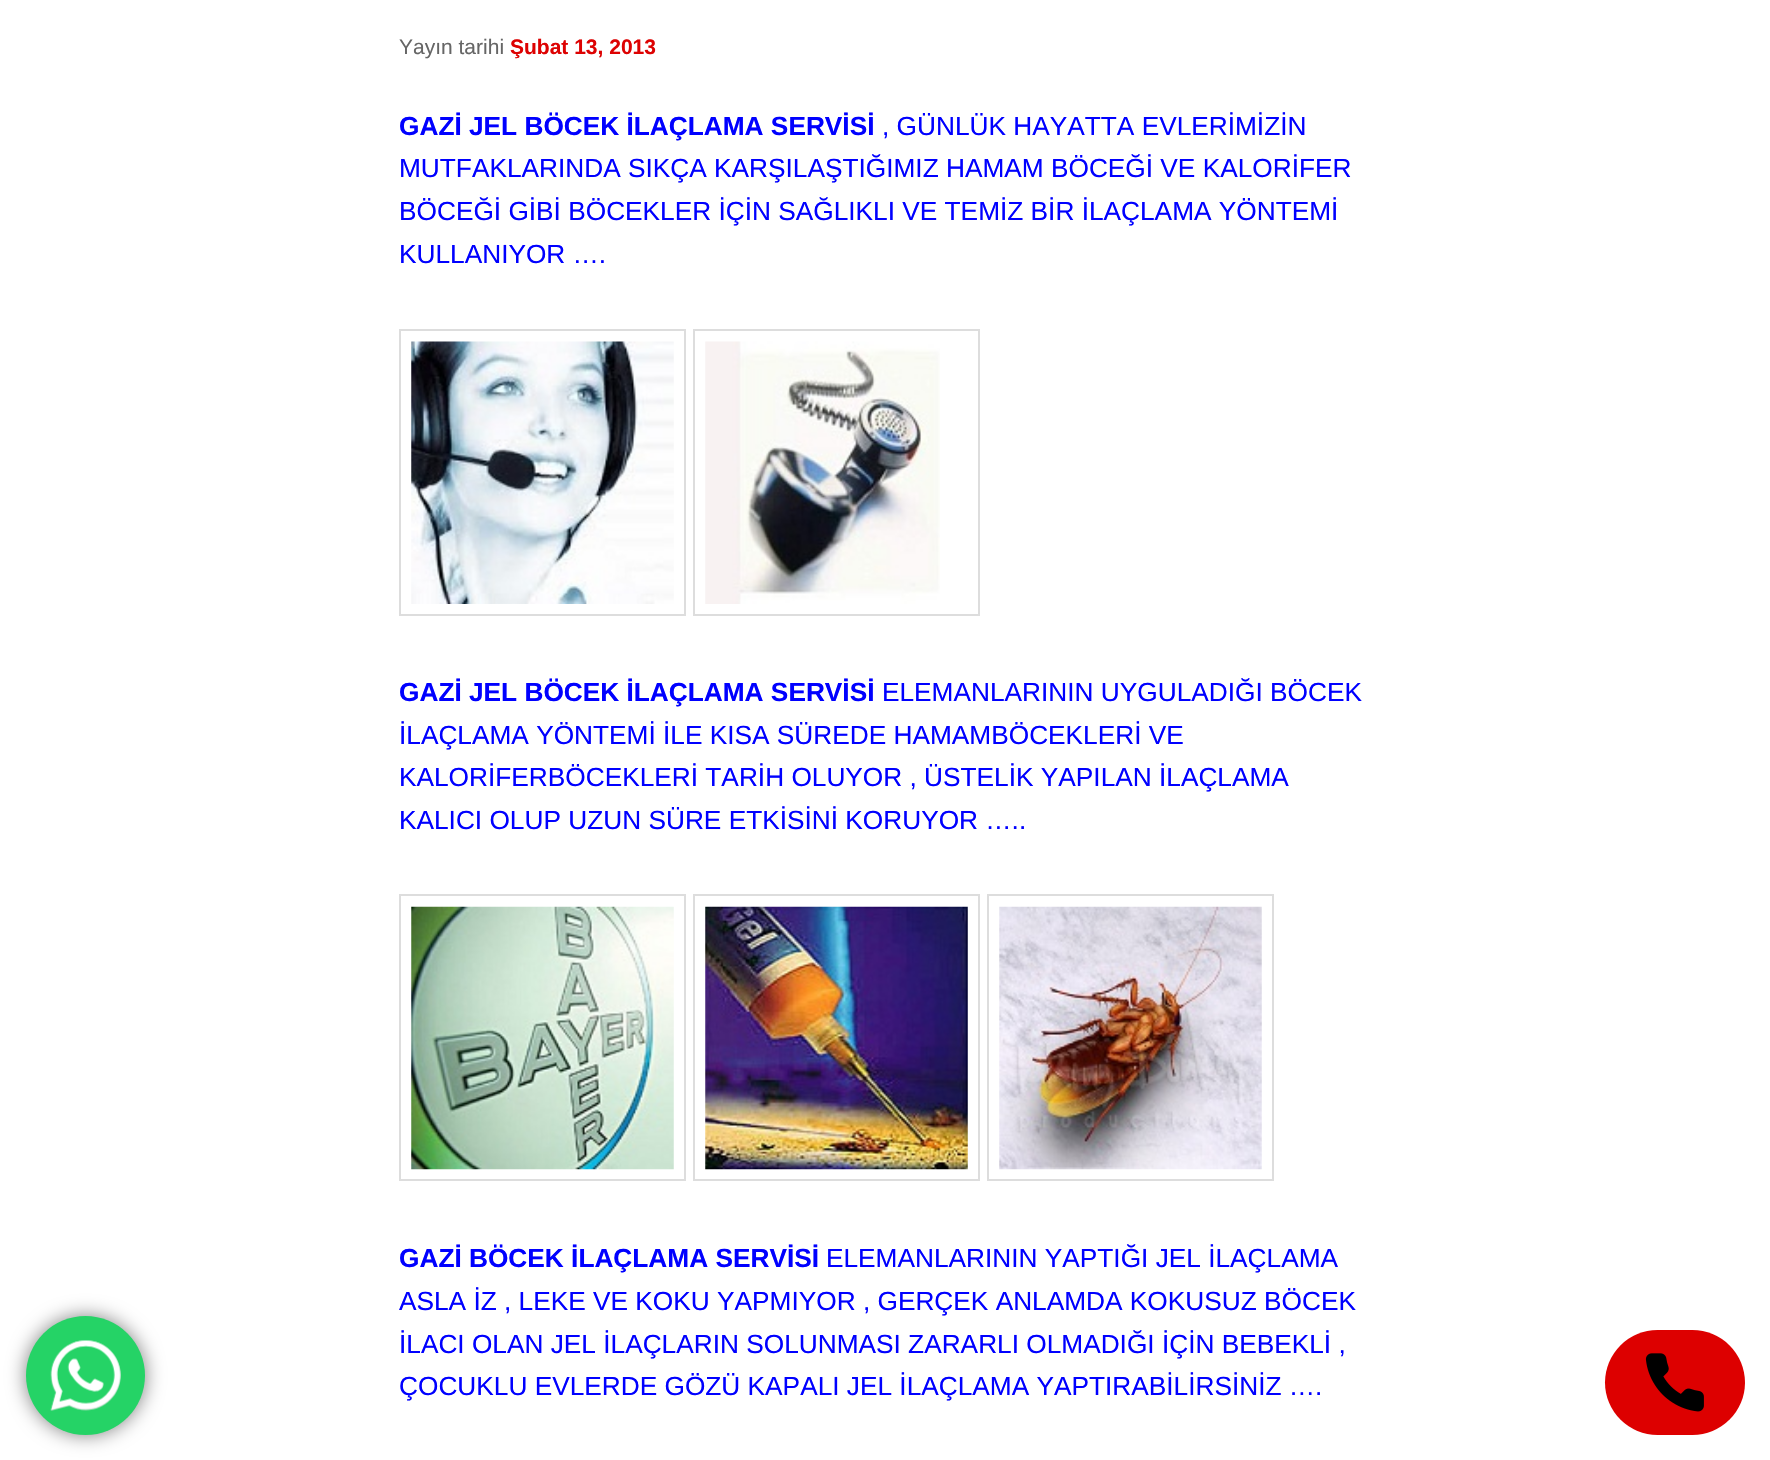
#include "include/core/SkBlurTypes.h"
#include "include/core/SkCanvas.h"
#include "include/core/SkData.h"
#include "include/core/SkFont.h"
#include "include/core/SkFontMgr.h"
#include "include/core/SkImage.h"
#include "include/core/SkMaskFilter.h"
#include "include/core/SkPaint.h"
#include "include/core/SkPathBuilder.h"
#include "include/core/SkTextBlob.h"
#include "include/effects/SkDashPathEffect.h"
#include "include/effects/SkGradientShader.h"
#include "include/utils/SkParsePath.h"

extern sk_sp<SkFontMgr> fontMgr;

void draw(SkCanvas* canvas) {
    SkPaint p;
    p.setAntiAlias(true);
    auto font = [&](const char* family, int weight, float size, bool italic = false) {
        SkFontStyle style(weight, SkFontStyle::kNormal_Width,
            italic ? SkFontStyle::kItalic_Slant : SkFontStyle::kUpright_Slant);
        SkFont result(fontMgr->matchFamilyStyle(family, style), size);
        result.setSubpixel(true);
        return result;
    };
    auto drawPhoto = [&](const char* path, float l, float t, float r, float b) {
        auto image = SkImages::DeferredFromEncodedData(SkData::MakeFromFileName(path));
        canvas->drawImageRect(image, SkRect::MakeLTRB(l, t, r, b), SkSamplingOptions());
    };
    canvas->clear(0xFFFFFFFF);
    p.setColor(0x80000000);
    p.setMaskFilter(SkMaskFilter::MakeBlur(kNormal_SkBlurStyle, 9.5f));
    canvas->drawRoundRect(SkRect::MakeLTRB(26, 1316, 145, 1435), 59.5f, 59.5f, p);
    p.setMaskFilter(nullptr);
    p.setColor(0xFF25D366);
    canvas->drawCircle(85.5f, 1375.5f, 59.5f, p);
    drawPhoto("media/1.png", 50, 1340, 121, 1411);
    auto font1 = font("Liberation Sans", 400, 21);
    p.setColor(0xFF666666);
    canvas->drawString("Yayın tarihi", 399, 54, font1, p);
    auto font2 = font("Liberation Sans", 700, 21);
    p.setColor(0xFFDD0202);
    canvas->drawString("Şubat 13, 2013", 510, 54, font2, p);
    auto font3 = font("Liberation Sans", 700, 26.25f);
    p.setColor(0xFF0000FF);
    canvas->drawString("GAZİ JEL BÖCEK İLAÇLAMA SERVİSİ", 399, 135, font3, p);
    auto font4 = font("Liberation Sans", 400, 26.25f);
    {
        const struct { const char* s; float x, y; } items[] = {
            {", GÜNLÜK HAYATTA EVLERİMİZİN", 882, 135},
            {"MUTFAKLARINDA SIKÇA KARŞILAŞTIĞIMIZ HAMAM BÖCEĞİ VE KALORİFER", 399, 177},
            {"BÖCEĞİ GİBİ BÖCEKLER İÇİN SAĞLIKLI VE TEMİZ BİR İLAÇLAMA YÖNTEMİ", 399, 220},
            {"KULLANIYOR ….", 399, 263},
        };
        for (auto [s, x, y] : items) {
            canvas->drawString(s, x, y, font4, p);
        }
    }
    p.setStyle(SkPaint::kStroke_Style);
    p.setStrokeWidth(2);
    p.setColor(0xFFDDDDDD);
    canvas->drawRect(SkRect::MakeLTRB(400, 330, 685, 615), p);
    canvas->drawRect(SkRect::MakeLTRB(694, 330, 979, 615), p);
    drawPhoto("media/2.png", 411, 341, 674, 604);
    drawPhoto("media/3.png", 705, 341, 940, 604);
    p.setStyle(SkPaint::kFill_Style);
    p.setColor(0xFF0000FF);
    canvas->drawString("GAZİ JEL BÖCEK İLAÇLAMA SERVİSİ", 399, 701, font3, p);
    {
        const struct { const char* s; float x, y; } items[] = {
            {"ELEMANLARININ UYGULADIĞI BÖCEK", 882, 701},
            {"İLAÇLAMA YÖNTEMİ İLE KISA SÜREDE HAMAMBÖCEKLERİ VE", 399, 744},
            {"KALORİFERBÖCEKLERİ TARİH OLUYOR , ÜSTELİK YAPILAN İLAÇLAMA", 399, 786},
            {"KALICI OLUP UZUN SÜRE ETKİSİNİ KORUYOR …..", 399, 829},
        };
        for (auto [s, x, y] : items) {
            canvas->drawString(s, x, y, font4, p);
        }
    }
    p.setStyle(SkPaint::kStroke_Style);
    p.setColor(0xFFDDDDDD);
    canvas->drawRect(SkRect::MakeLTRB(400, 895, 685, 1180), p);
    canvas->drawRect(SkRect::MakeLTRB(694, 895, 979, 1180), p);
    canvas->drawRect(SkRect::MakeLTRB(988, 895, 1273, 1180), p);
    drawPhoto("media/4.png", 411, 906, 674, 1170);
    drawPhoto("media/5.png", 705, 906, 968, 1170);
    drawPhoto("media/6.png", 999, 906, 1262, 1170);
    p.setStyle(SkPaint::kFill_Style);
    p.setColor(0xFF0000FF);
    canvas->drawString("GAZİ BÖCEK İLAÇLAMA SERVİSİ", 399, 1267, font3, p);
    {
        const struct { const char* s; float x, y; } items[] = {
            {"ELEMANLARININ YAPTIĞI JEL İLAÇLAMA", 826, 1267},
            {"ASLA İZ , LEKE VE KOKU YAPMIYOR , GERÇEK ANLAMDA KOKUSUZ BÖCEK", 399, 1310},
            {"İLACI OLAN JEL İLAÇLARIN SOLUNMASI ZARARLI OLMADIĞI İÇİN BEBEKLİ ,", 399, 1353},
            {"ÇOCUKLU EVLERDE GÖZÜ KAPALI JEL İLAÇLAMA YAPTIRABİLİRSİNİZ ….", 399, 1395},
        };
        for (auto [s, x, y] : items) {
            canvas->drawString(s, x, y, font4, p);
        }
    }
    p.setColor(0xFFDD0000);
    canvas->drawRoundRect(SkRect::MakeLTRB(1605, 1330, 1745, 1435), 52.5f, 52.5f, p);
    drawPhoto("media/7.png", 1645, 1353, 1704, 1412);
}
